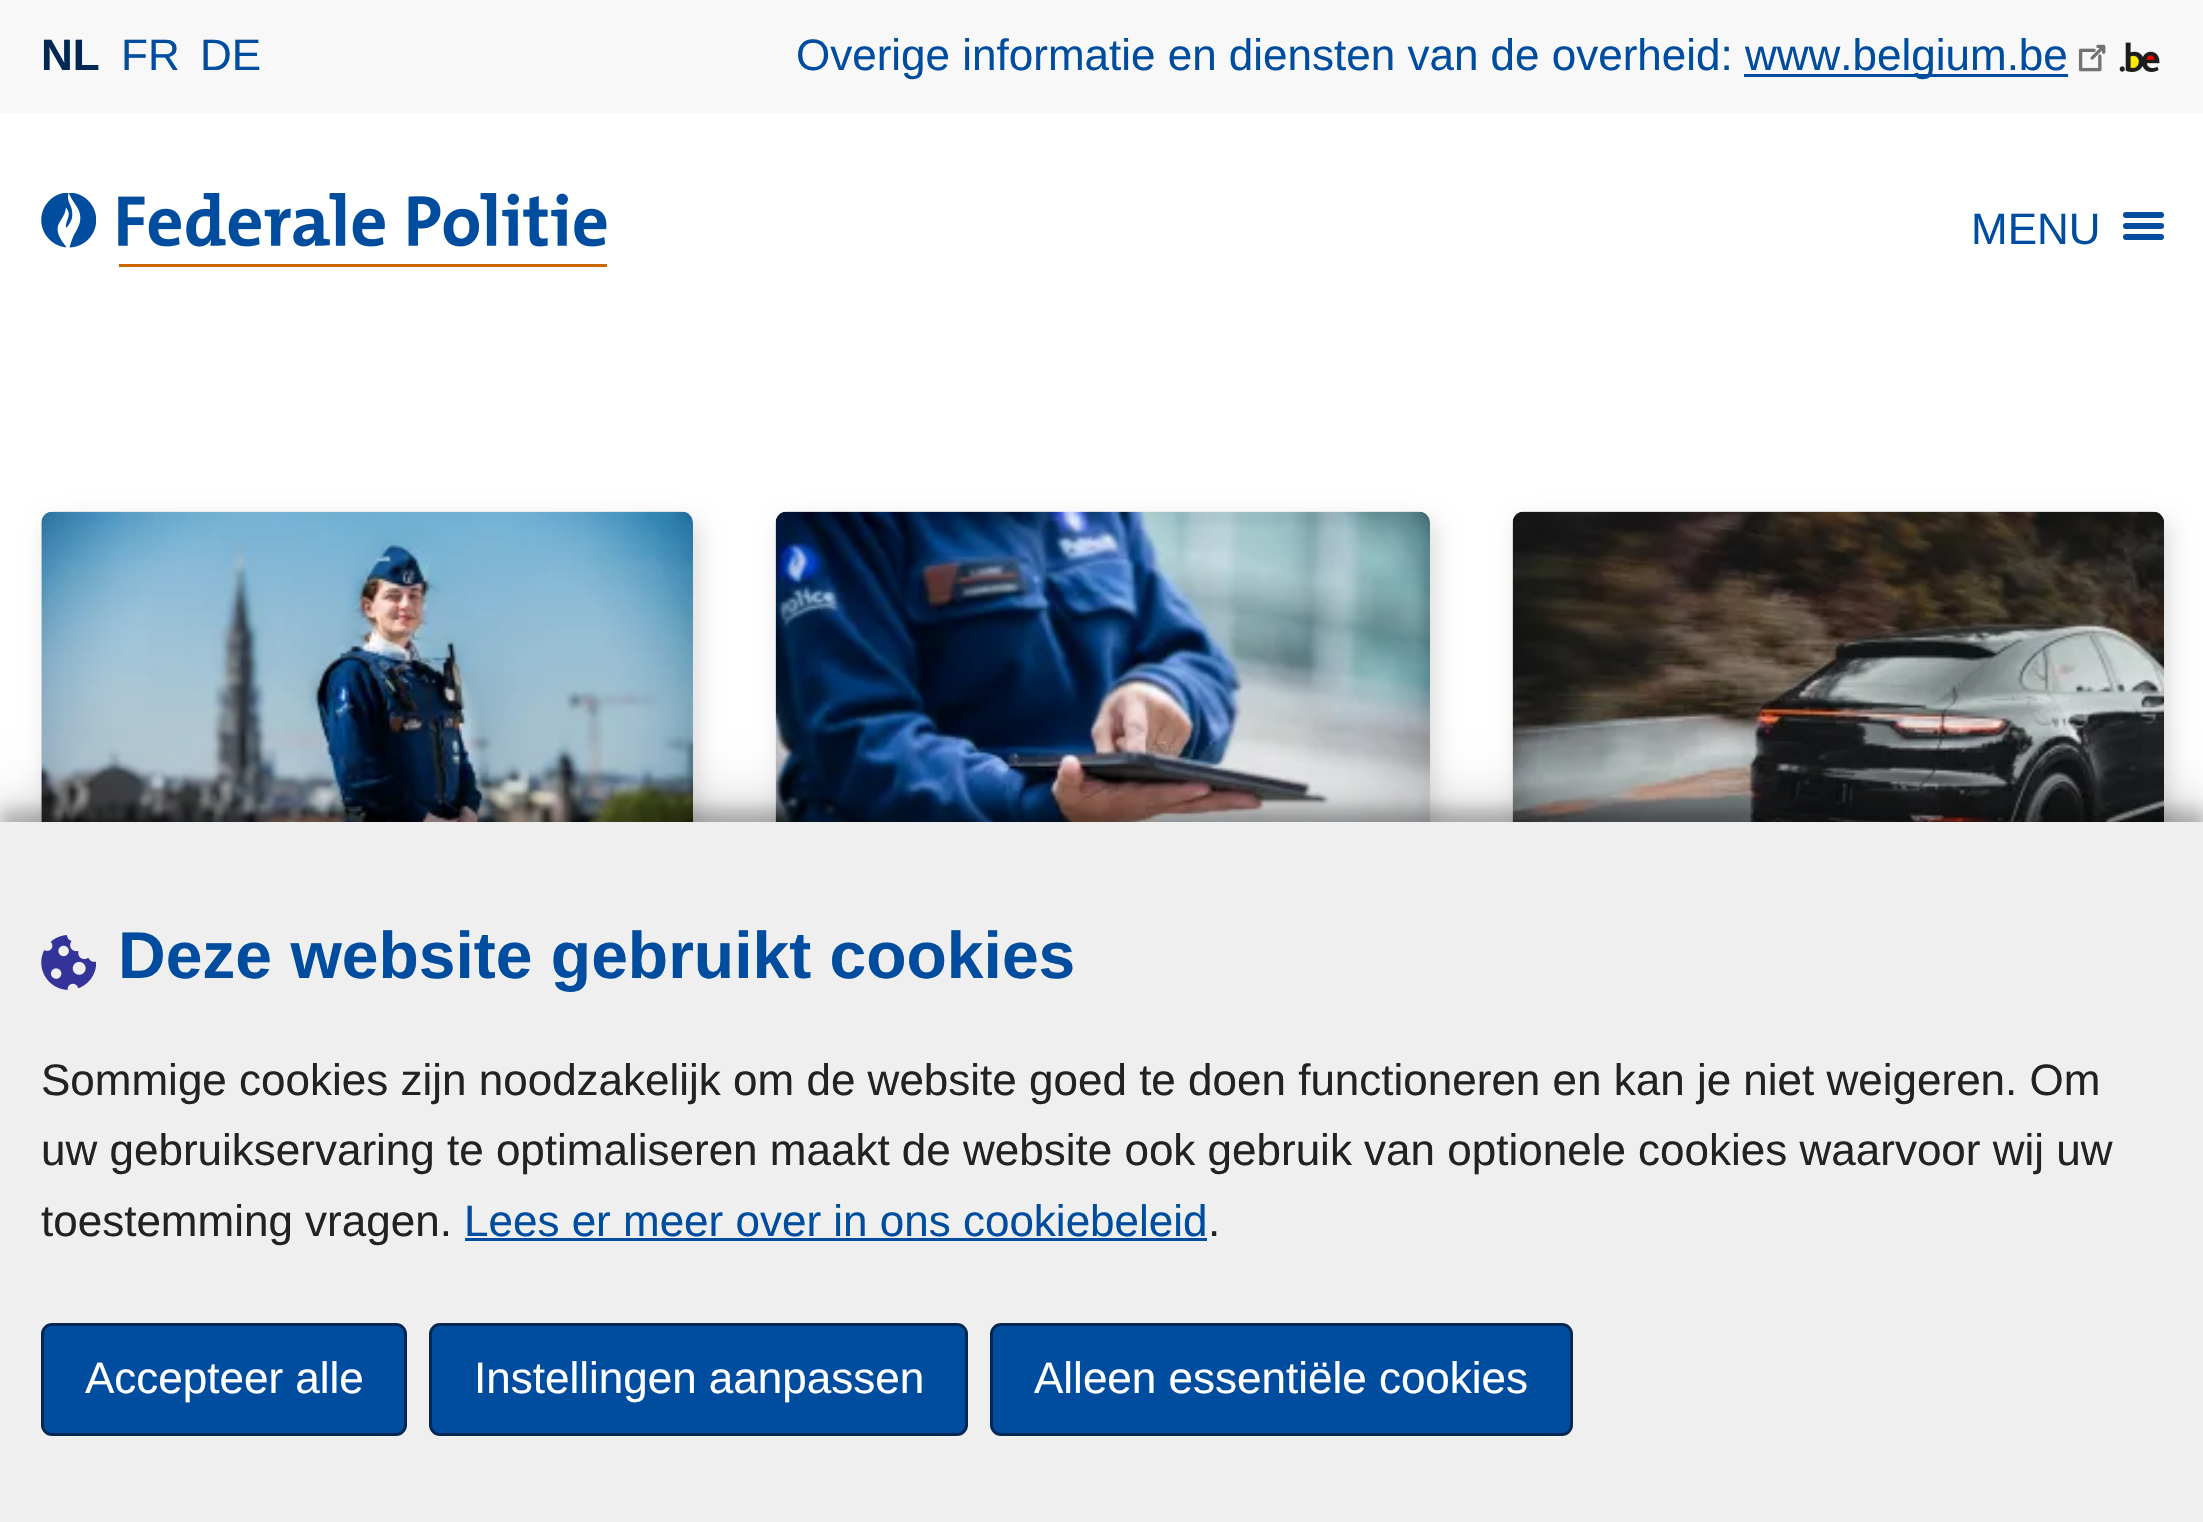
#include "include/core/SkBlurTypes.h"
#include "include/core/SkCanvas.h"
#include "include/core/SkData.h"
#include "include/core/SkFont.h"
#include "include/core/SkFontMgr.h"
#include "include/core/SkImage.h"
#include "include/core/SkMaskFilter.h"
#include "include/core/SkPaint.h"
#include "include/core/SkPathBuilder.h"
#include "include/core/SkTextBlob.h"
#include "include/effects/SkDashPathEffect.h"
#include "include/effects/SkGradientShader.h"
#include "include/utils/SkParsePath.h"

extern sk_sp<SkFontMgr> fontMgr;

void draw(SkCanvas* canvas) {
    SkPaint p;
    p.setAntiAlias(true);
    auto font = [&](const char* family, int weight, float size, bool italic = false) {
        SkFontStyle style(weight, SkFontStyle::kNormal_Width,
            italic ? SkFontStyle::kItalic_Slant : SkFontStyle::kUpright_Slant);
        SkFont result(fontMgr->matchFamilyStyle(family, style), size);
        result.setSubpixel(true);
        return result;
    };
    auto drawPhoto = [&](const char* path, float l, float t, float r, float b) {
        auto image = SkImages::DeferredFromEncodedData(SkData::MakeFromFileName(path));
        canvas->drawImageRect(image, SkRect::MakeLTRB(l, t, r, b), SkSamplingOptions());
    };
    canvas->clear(0xFFFFFFFF);
    p.setColor(0xFFF8F8F8);
    canvas->drawRect(SkRect::MakeLTRB(0, 0, 2203, 113), p);
    auto font1 = font("Liberation Sans", 700, 44);
    p.setColor(0xFF002853);
    canvas->drawString("NL", 41, 70, font1, p);
    auto font2 = font("Liberation Sans", 400, 44);
    p.setColor(0xFF004D9F);
    {
        const struct { const char* s; float x, y; } items[] = {
            {"FR", 121, 70},
            {"DE", 200, 70},
            {"Overige informatie en diensten van de overheid:", 796, 70},
        };
        for (auto [s, x, y] : items) {
            canvas->drawString(s, x, y, font2, p);
        }
    }
    canvas->drawRect(SkRect::MakeLTRB(1744, 74, 2068, 77), p);
    canvas->drawString("www.belgium.be", 1745, 70, font2, p);
    drawPhoto("media/1.png", 2078, 44, 2106, 72);
    drawPhoto("media/2.png", 2119, 42, 2160, 72);
    drawPhoto("media/3.png", 41, 193, 96, 248);
    drawPhoto("media/4.png", 118, 193, 607, 267);
    canvas->drawString("MENU", 1971, 244, font2, p);
    canvas->drawRoundRect(SkRect::MakeLTRB(2123, 223, 2164, 229), 3, 3, p);
    canvas->drawRoundRect(SkRect::MakeLTRB(2123, 212, 2164, 218), 3, 3, p);
    canvas->drawRoundRect(SkRect::MakeLTRB(2123, 234, 2164, 240), 3, 3, p);
    p.setColor(0xFFDCDCDC);
    p.setMaskFilter(SkMaskFilter::MakeBlur(kNormal_SkBlurStyle, 11));
    canvas->drawRoundRect(SkRect::MakeLTRB(47, 520, 699, 1141), 11, 11, p);
    p.setMaskFilter(nullptr);
    drawPhoto("media/5.png", 41, 511, 693, 822);
    p.setMaskFilter(SkMaskFilter::MakeBlur(kNormal_SkBlurStyle, 11));
    canvas->drawRoundRect(SkRect::MakeLTRB(781, 520, 1436, 1141), 11, 11, p);
    p.setMaskFilter(nullptr);
    drawPhoto("media/6.png", 775, 511, 1430, 822);
    p.setMaskFilter(SkMaskFilter::MakeBlur(kNormal_SkBlurStyle, 11));
    canvas->drawRoundRect(SkRect::MakeLTRB(1518, 520, 2170, 1141), 11, 11, p);
    p.setMaskFilter(nullptr);
    drawPhoto("media/7.png", 1512, 511, 2164, 822);
    p.setColor(0x3B000000);
    p.setMaskFilter(SkMaskFilter::MakeBlur(kNormal_SkBlurStyle, 8));
    canvas->drawRect(SkRect::MakeLTRB(0, 809, 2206, 1510), p);
    p.setMaskFilter(nullptr);
    p.setColor(0x30000000);
    p.setMaskFilter(SkMaskFilter::MakeBlur(kNormal_SkBlurStyle, 27.5f));
    canvas->drawRect(SkRect::MakeLTRB(0, 809, 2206, 1510), p);
    p.setMaskFilter(nullptr);
    p.setColor(0xFFEFEFEF);
    canvas->drawRect(SkRect::MakeLTRB(0, 822, 2203, 1522), p);
    drawPhoto("media/8.png", 41, 935, 96, 990);
    auto font3 = font("Liberation Sans", 700, 66);
    p.setColor(0xFF004D9F);
    canvas->drawString("Deze website gebruikt cookies", 118, 978, font3, p);
    p.setColor(0xFF222222);
    {
        const struct { const char* s; float x, y; } items[] = {
            {"Sommige cookies zijn noodzakelijk om de website goed te doen functioneren en kan je niet weigeren. Om", 41, 1095},
            {"uw gebruikservaring te optimaliseren maakt de website ook gebruik van optionele cookies waarvoor wij uw", 41, 1165},
            {"toestemming vragen.", 41, 1236},
        };
        for (auto [s, x, y] : items) {
            canvas->drawString(s, x, y, font2, p);
        }
    }
    p.setColor(0xFF004D9F);
    canvas->drawString("Lees er meer over in ons cookiebeleid", 464, 1236, font2, p);
    canvas->drawRect(SkRect::MakeLTRB(465, 1238, 1207, 1241), p);
    p.setColor(0xFF222222);
    canvas->drawString(".", 1208, 1236, font2, p);
    p.setColor(0xFF004D9F);
    canvas->drawRoundRect(SkRect::MakeLTRB(42.5f, 1324.5f, 405.5f, 1434.5f), 9.5f, 9.5f, p);
    p.setStyle(SkPaint::kStroke_Style);
    p.setStrokeWidth(3);
    p.setColor(0xFF002853);
    canvas->drawRoundRect(SkRect::MakeLTRB(42.5f, 1324.5f, 405.5f, 1434.5f), 9.5f, 9.5f, p);
    p.setStyle(SkPaint::kFill_Style);
    p.setColor(0xFFFFFFFF);
    canvas->drawString("Accepteer alle", 85, 1393, font2, p);
    p.setColor(0xFF004D9F);
    canvas->drawRoundRect(SkRect::MakeLTRB(430.5f, 1324.5f, 966.5f, 1434.5f), 9.5f, 9.5f, p);
    p.setStyle(SkPaint::kStroke_Style);
    p.setColor(0xFF002853);
    canvas->drawRoundRect(SkRect::MakeLTRB(430.5f, 1324.5f, 966.5f, 1434.5f), 9.5f, 9.5f, p);
    p.setStyle(SkPaint::kFill_Style);
    p.setColor(0xFFFFFFFF);
    canvas->drawString("Instellingen aanpassen", 474, 1393, font2, p);
    p.setColor(0xFF004D9F);
    canvas->drawRoundRect(SkRect::MakeLTRB(991.5f, 1324.5f, 1571.5f, 1434.5f), 9.5f, 9.5f, p);
    p.setStyle(SkPaint::kStroke_Style);
    p.setColor(0xFF002853);
    canvas->drawRoundRect(SkRect::MakeLTRB(991.5f, 1324.5f, 1571.5f, 1434.5f), 9.5f, 9.5f, p);
    p.setStyle(SkPaint::kFill_Style);
    p.setColor(0xFFFFFFFF);
    canvas->drawString("Alleen essentiële cookies", 1034, 1393, font2, p);
}
